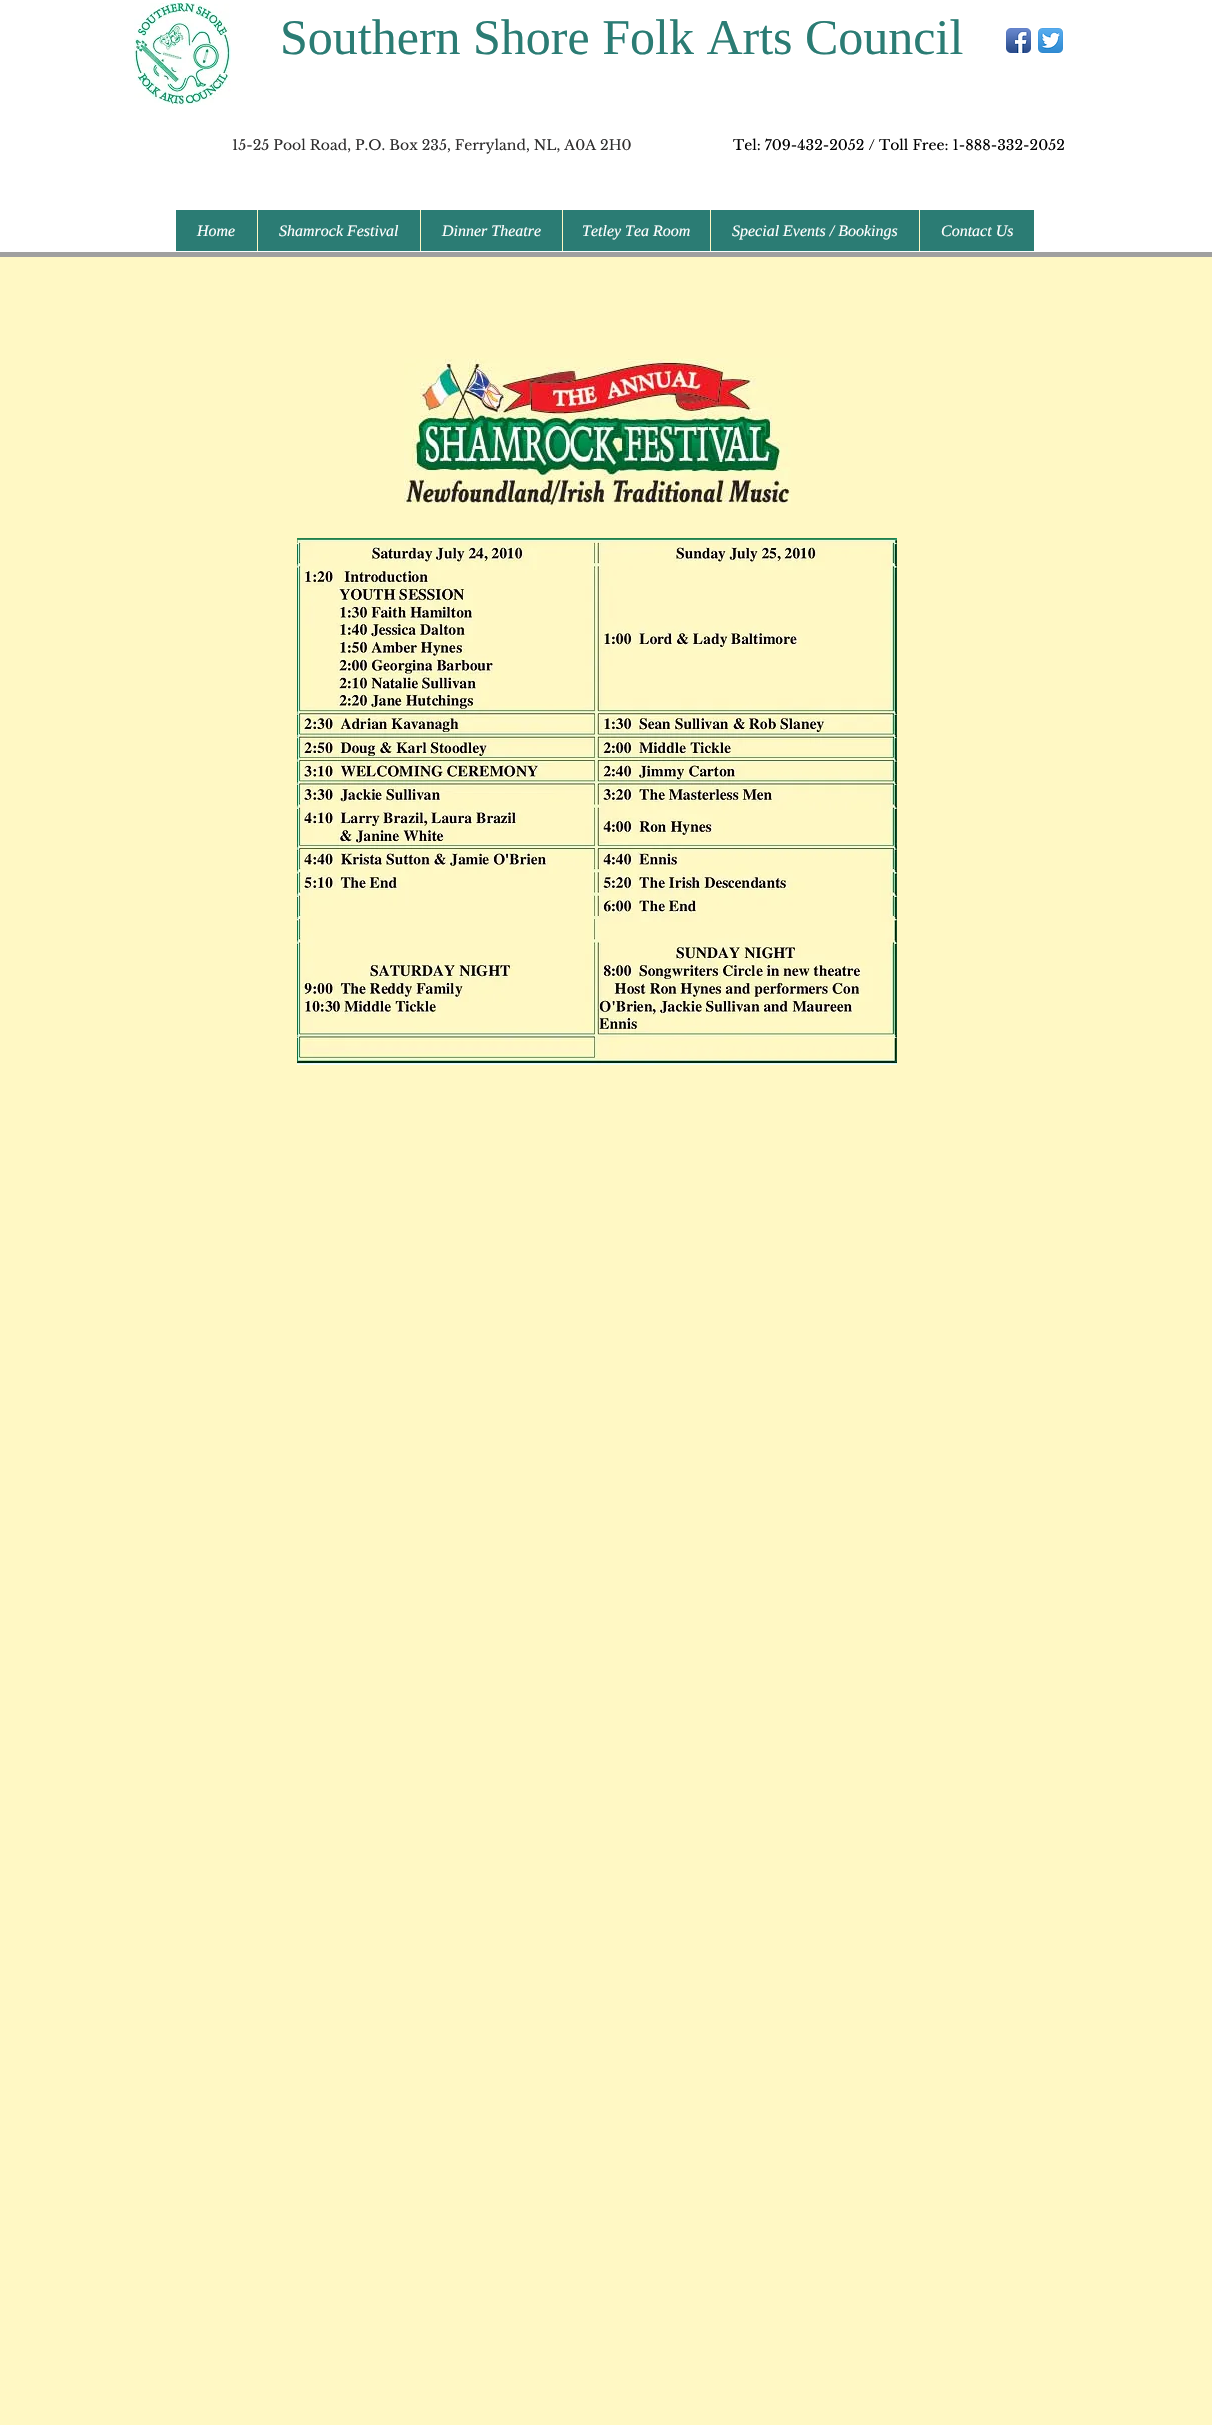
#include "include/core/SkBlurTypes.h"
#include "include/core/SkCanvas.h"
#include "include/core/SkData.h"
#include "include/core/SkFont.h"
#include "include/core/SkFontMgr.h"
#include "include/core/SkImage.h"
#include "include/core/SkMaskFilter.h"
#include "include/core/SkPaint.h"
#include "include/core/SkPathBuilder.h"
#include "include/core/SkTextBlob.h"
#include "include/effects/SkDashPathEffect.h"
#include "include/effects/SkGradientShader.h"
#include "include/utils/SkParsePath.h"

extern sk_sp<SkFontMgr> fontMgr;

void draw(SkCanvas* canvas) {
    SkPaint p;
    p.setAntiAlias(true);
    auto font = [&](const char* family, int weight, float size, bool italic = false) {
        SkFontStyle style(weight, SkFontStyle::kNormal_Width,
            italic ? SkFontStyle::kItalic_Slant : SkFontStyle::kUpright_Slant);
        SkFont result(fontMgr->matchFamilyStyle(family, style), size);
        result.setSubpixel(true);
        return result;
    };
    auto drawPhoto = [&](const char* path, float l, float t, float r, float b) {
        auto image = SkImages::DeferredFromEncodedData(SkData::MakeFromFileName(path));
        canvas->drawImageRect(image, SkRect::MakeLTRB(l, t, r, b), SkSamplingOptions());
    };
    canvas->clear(0xFFFFF8C4);
    p.setColor(0xFFFFFFFF);
    canvas->drawRect(SkRect::MakeLTRB(0, 0, 1212, 252), p);
    p.setColor(0xFFA0A09F);
    canvas->drawRect(SkRect::MakeLTRB(0, 252, 1212, 257), p);
    drawPhoto("media/1.png", 134, 3, 231, 105);
    auto font1 = font("Liberation Serif", 400, 50);
    p.setColor(0xFF2B7C74);
    canvas->drawString("Southern Shore Folk Arts Council", 280, 54, font1, p);
    drawPhoto("media/2.png", 1006, 28, 1031, 53);
    drawPhoto("media/3.png", 1038, 28, 1063, 53);
    auto font2 = font("Libre Baskerville", 400, 14);
    p.setColor(0xFF2F2E2E);
    canvas->drawString("15-25 Pool Road, P.O. Box 235, Ferryland, NL, A0A 2H0", 232, 150, font2, p);
    p.setColor(0xFF000000);
    canvas->drawString("Tel: 709-432-2052 / Toll Free: 1-888-332-2052", 733, 150, font2, p);
    p.setColor(0xFF2B7C74);
    canvas->drawRect(SkRect::MakeLTRB(176, 210, 1034, 251), p);
    auto font3 = font("Liberation Serif", 400, 16, true);
    p.setColor(0xFFFFFFFF);
    canvas->drawString("Home", 197, 236, font3, p);
    p.setColor(0xFFFFF8C4);
    canvas->drawRect(SkRect::MakeLTRB(257, 210, 258, 251), p);
    p.setColor(0xFFFFFFFF);
    canvas->drawString("Shamrock Festival", 279, 236, font3, p);
    p.setColor(0xFFFFF8C4);
    canvas->drawRect(SkRect::MakeLTRB(420, 210, 421, 251), p);
    p.setColor(0xFFFFFFFF);
    canvas->drawString("Dinner Theatre", 442, 236, font3, p);
    p.setColor(0xFFFFF8C4);
    canvas->drawRect(SkRect::MakeLTRB(562, 210, 563, 251), p);
    p.setColor(0xFFFFFFFF);
    canvas->drawString("Tetley Tea Room", 582, 236, font3, p);
    p.setColor(0xFFFFF8C4);
    canvas->drawRect(SkRect::MakeLTRB(710, 210, 711, 251), p);
    p.setColor(0xFFFFFFFF);
    canvas->drawString("Special Events / Bookings", 732, 236, font3, p);
    p.setColor(0xFFFFF8C4);
    canvas->drawRect(SkRect::MakeLTRB(919, 210, 920, 251), p);
    p.setColor(0xFFFFFFFF);
    canvas->drawString("Contact Us", 941, 236, font3, p);
    drawPhoto("media/4.png", 404, 358, 791, 506);
    drawPhoto("media/5.png", 297, 538, 897, 1065);
}
